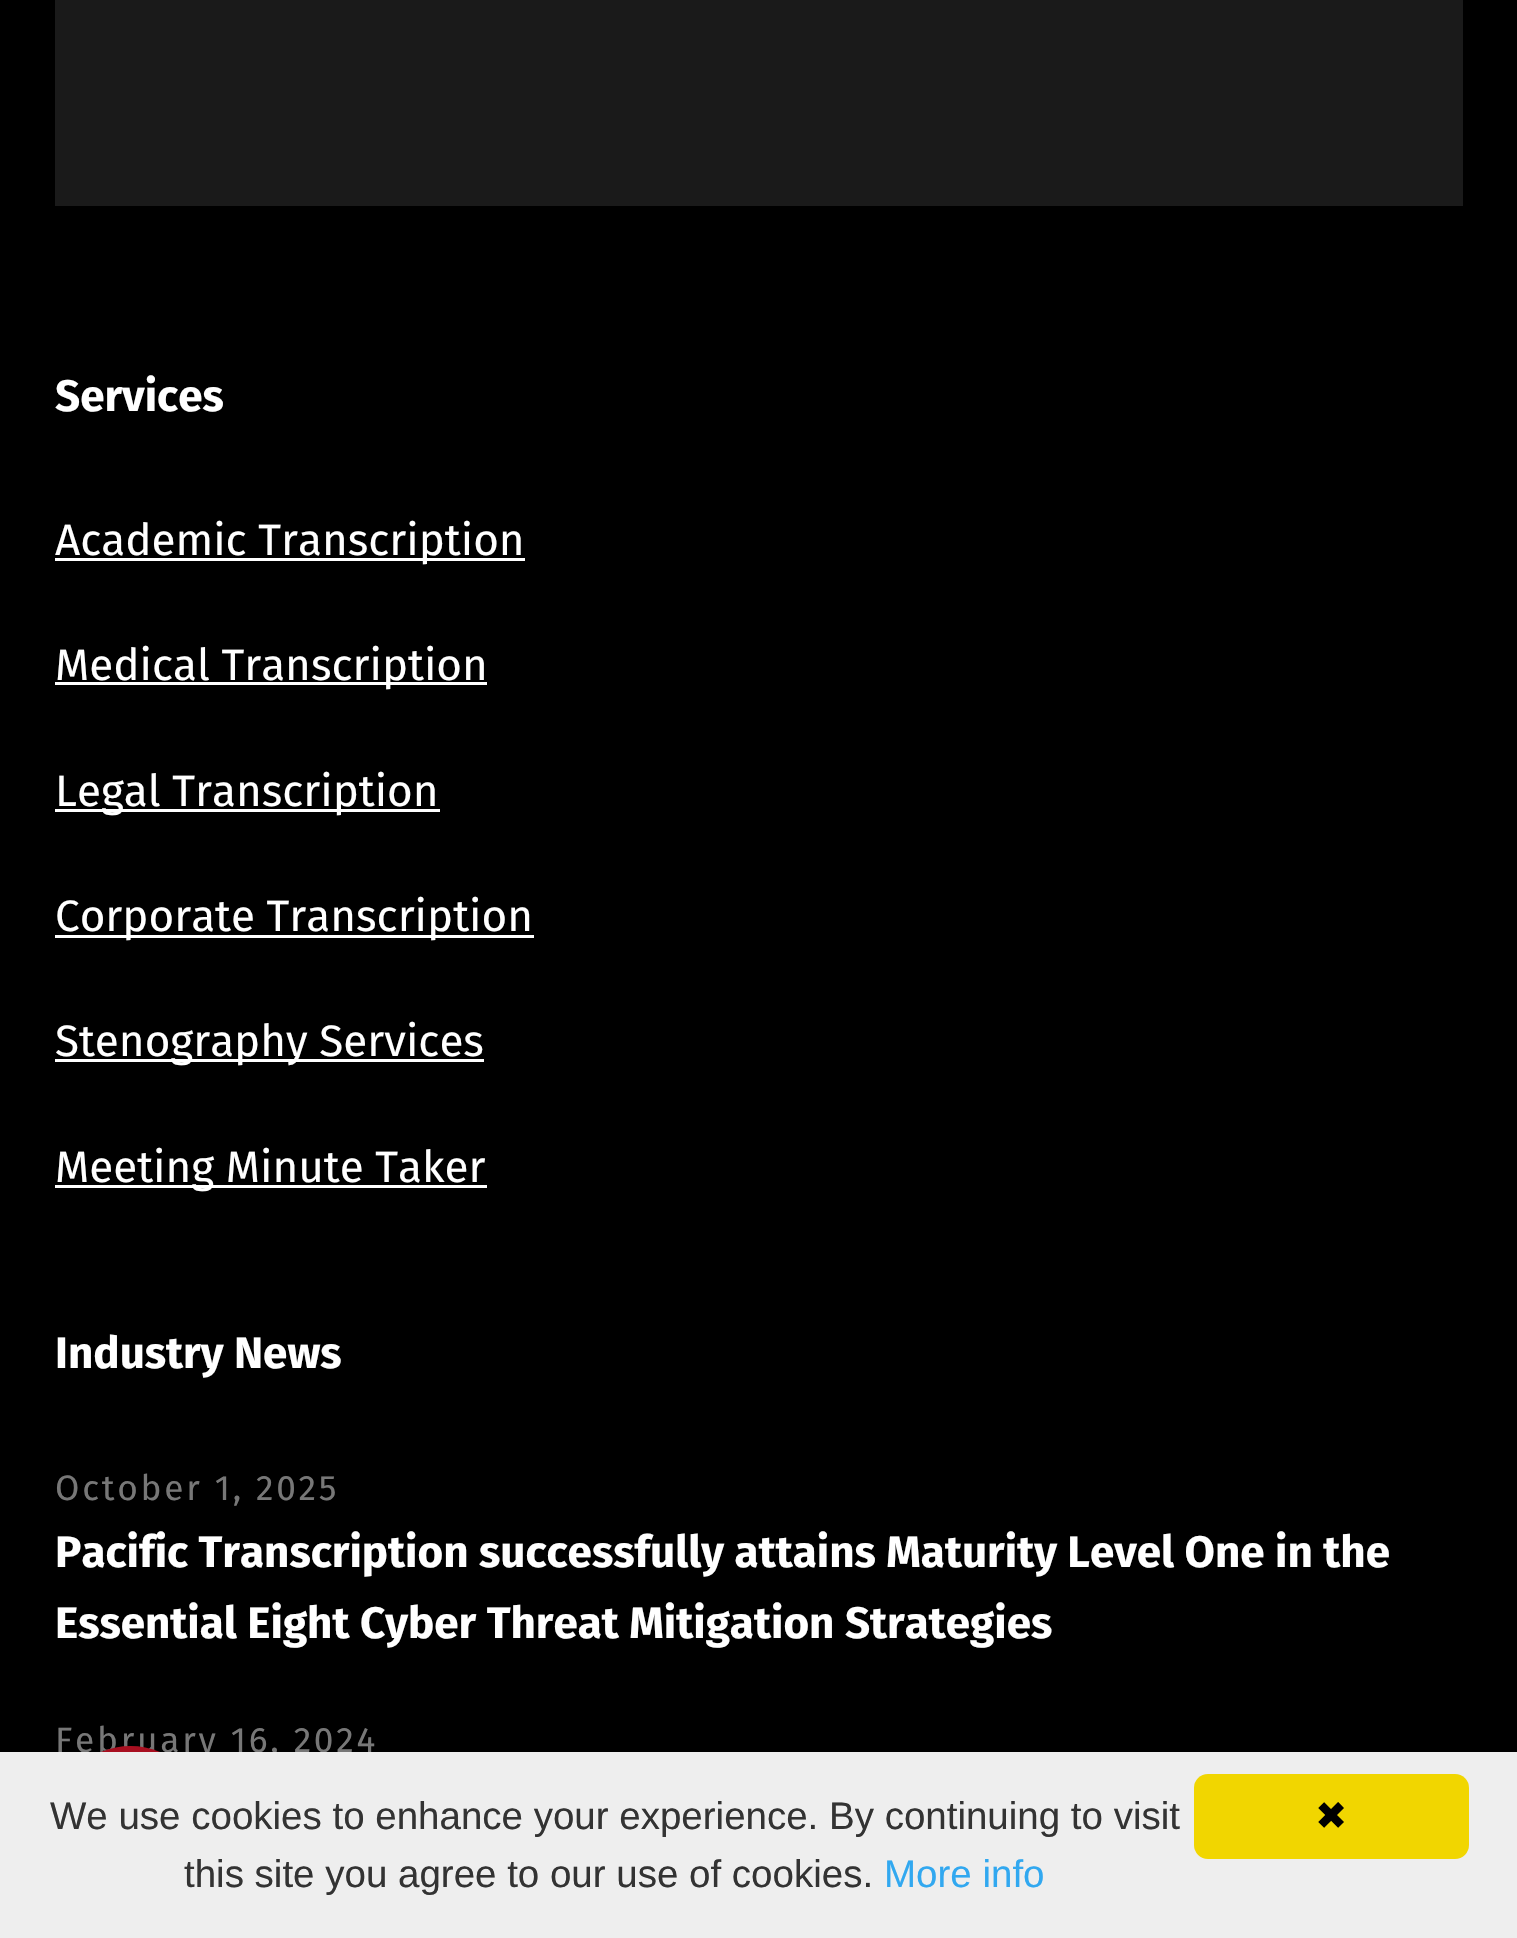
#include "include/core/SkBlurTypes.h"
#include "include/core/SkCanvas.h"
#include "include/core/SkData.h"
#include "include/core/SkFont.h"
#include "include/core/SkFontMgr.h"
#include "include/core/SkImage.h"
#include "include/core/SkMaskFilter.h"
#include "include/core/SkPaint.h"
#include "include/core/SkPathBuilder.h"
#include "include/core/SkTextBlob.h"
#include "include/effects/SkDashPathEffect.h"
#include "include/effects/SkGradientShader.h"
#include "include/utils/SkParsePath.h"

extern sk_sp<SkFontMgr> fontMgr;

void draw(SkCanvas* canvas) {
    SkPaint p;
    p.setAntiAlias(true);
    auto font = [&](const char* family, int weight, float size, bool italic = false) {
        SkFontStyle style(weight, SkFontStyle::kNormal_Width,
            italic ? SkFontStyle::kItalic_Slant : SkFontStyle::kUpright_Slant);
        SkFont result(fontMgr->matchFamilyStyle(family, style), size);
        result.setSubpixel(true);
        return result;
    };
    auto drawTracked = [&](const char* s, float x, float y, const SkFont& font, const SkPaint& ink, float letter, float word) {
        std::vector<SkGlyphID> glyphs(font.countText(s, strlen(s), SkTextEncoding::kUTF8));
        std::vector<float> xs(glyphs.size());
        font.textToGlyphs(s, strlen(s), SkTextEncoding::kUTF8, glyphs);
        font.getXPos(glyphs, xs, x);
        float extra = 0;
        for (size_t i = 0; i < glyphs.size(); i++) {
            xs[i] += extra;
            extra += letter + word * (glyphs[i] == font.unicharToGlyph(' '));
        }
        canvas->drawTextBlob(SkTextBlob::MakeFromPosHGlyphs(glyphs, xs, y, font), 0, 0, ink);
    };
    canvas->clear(0xFF000000);
    p.setColor(0xFF1A1A1A);
    canvas->drawRect(SkRect::MakeLTRB(55, 0, 1463, 206), p);
    auto font1 = font("Fira Sans", 700, 44);
    p.setColor(0xFFFFFFFF);
    canvas->drawString("Services", 55, 411, font1, p);
    canvas->drawRect(SkRect::MakeLTRB(55, 558, 525, 561), p);
    auto font2 = font("Fira Sans", 400, 44);
    canvas->drawString("Academic Transcription", 55, 555, font2, p);
    canvas->drawRect(SkRect::MakeLTRB(55, 682, 487, 685), p);
    canvas->drawString("Medical Transcription", 55, 680, font2, p);
    canvas->drawRect(SkRect::MakeLTRB(55, 809, 440, 812), p);
    canvas->drawString("Legal Transcription", 55, 806, font2, p);
    canvas->drawRect(SkRect::MakeLTRB(55, 935, 534, 938), p);
    canvas->drawString("Corporate Transcription", 55, 931, font2, p);
    canvas->drawRect(SkRect::MakeLTRB(55, 1059, 484, 1062), p);
    canvas->drawString("Stenography Services", 55, 1056, font2, p);
    canvas->drawRect(SkRect::MakeLTRB(55, 1185, 487, 1188), p);
    canvas->drawString("Meeting Minute Taker", 55, 1182, font2, p);
    canvas->drawString("Industry News", 55, 1368, font1, p);
    auto font3 = font("Fira Sans", 400, 35.25f);
    p.setColor(0xFF777777);
    drawTracked("October 1, 2025", 55, 1500, font3, p, 2.75f, 0);
    p.setColor(0xFFFFFFFF);
    canvas->drawString("Pacific Transcription successfully attains Maturity Level One in the", 55, 1567, font1, p);
    canvas->drawString("Essential Eight Cyber Threat Mitigation Strategies", 55, 1638, font1, p);
    p.setColor(0xFF777777);
    drawTracked("February 16, 2024", 55, 1752, font3, p, 2.75f, 0);
    p.setColor(0x4D000000);
    p.setMaskFilter(SkMaskFilter::MakeBlur(kNormal_SkBlurStyle, 8));
    canvas->drawRoundRect(SkRect::MakeLTRB(55, 1755, 206, 1906), 75.5f, 75.5f, p);
    p.setMaskFilter(nullptr);
    p.setColor(0xFFA80F20);
    canvas->drawRoundRect(SkRect::MakeLTRB(55, 1746, 206, 1898), 75.5f, 75.5f, p);
    p.setColor(0xFFEEEEEE);
    canvas->drawRect(SkRect::MakeLTRB(0, 1752, 1517, 1938), p);
    auto font4 = font("Liberation Sans", 400, 38.5f);
    p.setColor(0xFF333333);
    canvas->drawString("We use cookies to enhance your experience. By continuing to visit", 50, 1829, font4, p);
    canvas->drawString("this site you agree to our use of cookies.", 184, 1887, font4, p);
    p.setColor(0xFF31A8F0);
    canvas->drawString("More info", 884, 1887, font4, p);
    p.setColor(0xFFF1D600);
    canvas->drawRoundRect(SkRect::MakeLTRB(1194, 1774, 1469, 1859), 14, 14, p);
    auto font5 = font("DejaVu Sans", 400, 38.5f);
    p.setColor(0xFF000000);
    canvas->drawString("✖", 1315, 1829, font5, p);
}
